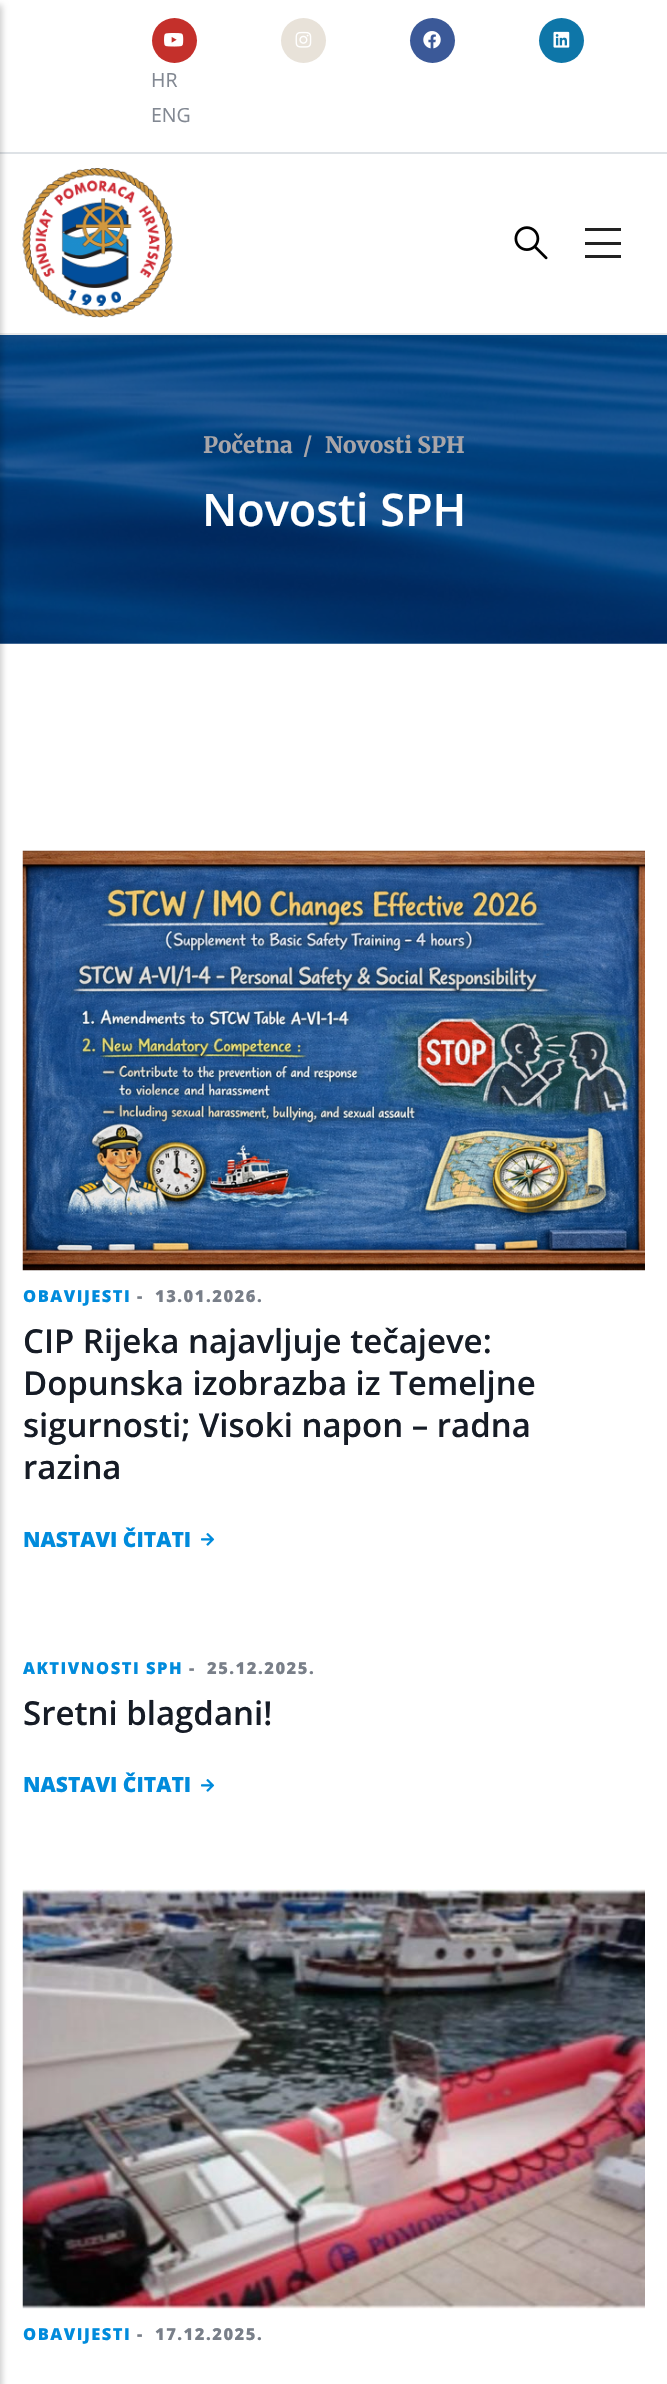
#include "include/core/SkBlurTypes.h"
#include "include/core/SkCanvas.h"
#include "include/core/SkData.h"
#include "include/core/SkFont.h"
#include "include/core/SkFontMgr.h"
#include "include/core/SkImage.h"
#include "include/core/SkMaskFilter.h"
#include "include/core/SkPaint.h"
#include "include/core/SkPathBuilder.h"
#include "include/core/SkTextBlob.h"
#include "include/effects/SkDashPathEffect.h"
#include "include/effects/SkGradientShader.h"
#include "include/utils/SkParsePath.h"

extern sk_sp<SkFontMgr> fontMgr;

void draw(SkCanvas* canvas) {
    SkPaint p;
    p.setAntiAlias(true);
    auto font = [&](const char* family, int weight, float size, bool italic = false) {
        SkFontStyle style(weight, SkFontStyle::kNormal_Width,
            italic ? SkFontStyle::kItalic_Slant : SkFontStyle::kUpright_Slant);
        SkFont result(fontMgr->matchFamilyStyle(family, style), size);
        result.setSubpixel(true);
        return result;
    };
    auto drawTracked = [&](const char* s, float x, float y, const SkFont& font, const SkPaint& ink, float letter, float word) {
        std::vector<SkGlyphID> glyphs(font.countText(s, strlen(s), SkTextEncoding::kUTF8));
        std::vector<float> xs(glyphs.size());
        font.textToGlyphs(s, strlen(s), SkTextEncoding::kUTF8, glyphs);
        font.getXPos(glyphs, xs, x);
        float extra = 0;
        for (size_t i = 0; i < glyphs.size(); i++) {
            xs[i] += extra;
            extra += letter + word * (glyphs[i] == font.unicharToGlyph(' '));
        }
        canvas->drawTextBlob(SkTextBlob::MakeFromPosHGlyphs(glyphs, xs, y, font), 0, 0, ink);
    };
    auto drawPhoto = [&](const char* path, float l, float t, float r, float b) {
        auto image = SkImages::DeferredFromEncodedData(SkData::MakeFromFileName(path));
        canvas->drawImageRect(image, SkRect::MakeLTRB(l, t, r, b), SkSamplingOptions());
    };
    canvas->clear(0xFFFFFFFF);
    drawPhoto("media/7.png", 0, 643, 667, 644);
    drawPhoto("media/8.png", 0, 335, 667, 644);
    p.setColor(0x1A000000);
    p.setMaskFilter(SkMaskFilter::MakeBlur(kNormal_SkBlurStyle, 7.5f));
    canvas->drawRect(SkRect::MakeLTRB(-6, -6, 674, 341), p);
    p.setMaskFilter(nullptr);
    {
        const struct { float l, t, r, b; SkColor color; } items[] = {
            {0, 0, 667, 333, 0xFFFFFFFF},
            {0, 333, 667, 335, 0xFFEBEBEB},
            {0, 152, 667, 154, 0xFFDEE2E6},
        };
        for (auto [l, t, r, b, color] : items) {
            p.setColor(color);
            canvas->drawRect(SkRect::MakeLTRB(l, t, r, b), p);
        }
    }
    p.setColor(0x33000000);
    p.setMaskFilter(SkMaskFilter::MakeBlur(kNormal_SkBlurStyle, 3));
    canvas->drawRect(SkRect::MakeLTRB(-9, 5, 2, 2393), p);
    p.setMaskFilter(nullptr);
    {
        const struct { float l, t, r, b; SkColor color; } items[] = {
            {585, 228, 621, 231, 0xFF222222},
            {585, 242, 621, 245, 0xFF222222},
            {585, 255, 621, 258, 0xFF222222},
        };
        for (auto [l, t, r, b, color] : items) {
            p.setColor(color);
            canvas->drawRect(SkRect::MakeLTRB(l, t, r, b), p);
        }
    }
    drawPhoto("media/1.png", 22, 168, 173, 318);
    drawPhoto("media/2.png", 514, 226, 548, 260);
    p.setColor(0xFFC4302B);
    canvas->drawCircle(174.5f, 40.5f, 22.5f, p);
    drawPhoto("media/3.png", 164, 33, 184, 47);
    p.setColor(0xFFE8E2D9);
    canvas->drawCircle(303.5f, 40.5f, 22.5f, p);
    drawPhoto("media/4.png", 295, 31, 312, 48);
    p.setColor(0xFF3B5998);
    canvas->drawCircle(432.5f, 40.5f, 22.5f, p);
    drawPhoto("media/5.png", 423, 31, 441, 49);
    p.setColor(0xFF0E76A8);
    canvas->drawCircle(561.5f, 40.5f, 22.5f, p);
    drawPhoto("media/6.png", 553, 31, 570, 48);
    auto font1 = font("Open Sans", 400, 19.5f);
    p.setColor(0xFF828892);
    canvas->drawString("HR", 151, 87, font1, p);
    canvas->drawString("ENG", 151, 122, font1, p);
    auto font2 = font("Merriweather", 800, 22.5f);
    p.setColor(0xFFA8A5A8);
    {
        const struct { const char* s; float x, y; } items[] = {
            {"Početna", 203, 453},
            {"/", 303, 453},
            {"Novosti SPH", 325, 453},
        };
        for (auto [s, x, y] : items) {
            canvas->drawString(s, x, y, font2, p);
        }
    }
    auto font3 = font("Open Sans", 600, 45);
    p.setColor(0xFFFFFFFF);
    canvas->drawString("Novosti SPH", 202, 526, font3, p);
    drawPhoto("media/9.png", 22, 850, 645, 1271);
    auto font4 = font("Open Sans", 800, 16.5f);
    p.setColor(0xFF008BDC);
    drawTracked("OBAVIJESTI", 23, 1302, font4, p, 1.5f, 0);
    p.setColor(0xFF797F89);
    drawTracked("-", 137, 1302, font4, p, 1.5f, 0);
    drawTracked("13.01.2026.", 155, 1302, font4, p, 1.5f, 0);
    auto font5 = font("Open Sans", 600, 33);
    p.setColor(0xFF161C26);
    {
        const struct { const char* s; float x, y; } items[] = {
            {"CIP Rijeka najavljuje tečajeve:", 23, 1353},
            {"Dopunska izobrazba iz Temeljne", 23, 1395},
            {"sigurnosti; Visoki napon – radna", 23, 1437},
            {"razina", 23, 1479},
        };
        for (auto [s, x, y] : items) {
            canvas->drawString(s, x, y, font5, p);
        }
    }
    auto font6 = font("Open Sans", 800, 21);
    p.setColor(0xFF008BDC);
    canvas->drawString("NASTAVI ČITATI", 23, 1547, font6, p);
    drawPhoto("media/10.png", 201, 1533, 215, 1546);
    drawTracked("AKTIVNOSTI SPH", 23, 1674, font4, p, 1.5f, 0);
    p.setColor(0xFF797F89);
    drawTracked("-", 189, 1674, font4, p, 1.5f, 0);
    drawTracked("25.12.2025.", 207, 1674, font4, p, 1.5f, 0);
    p.setColor(0xFF161C26);
    canvas->drawString("Sretni blagdani!", 23, 1725, font5, p);
    p.setColor(0xFF008BDC);
    canvas->drawString("NASTAVI ČITATI", 23, 1792, font6, p);
    drawPhoto("media/10.png", 201, 1779, 215, 1792);
    drawPhoto("media/11.png", 22, 1889, 645, 2309);
    drawTracked("OBAVIJESTI", 23, 2340, font4, p, 1.5f, 0);
    p.setColor(0xFF797F89);
    drawTracked("-", 137, 2340, font4, p, 1.5f, 0);
    drawTracked("17.12.2025.", 155, 2340, font4, p, 1.5f, 0);
}
